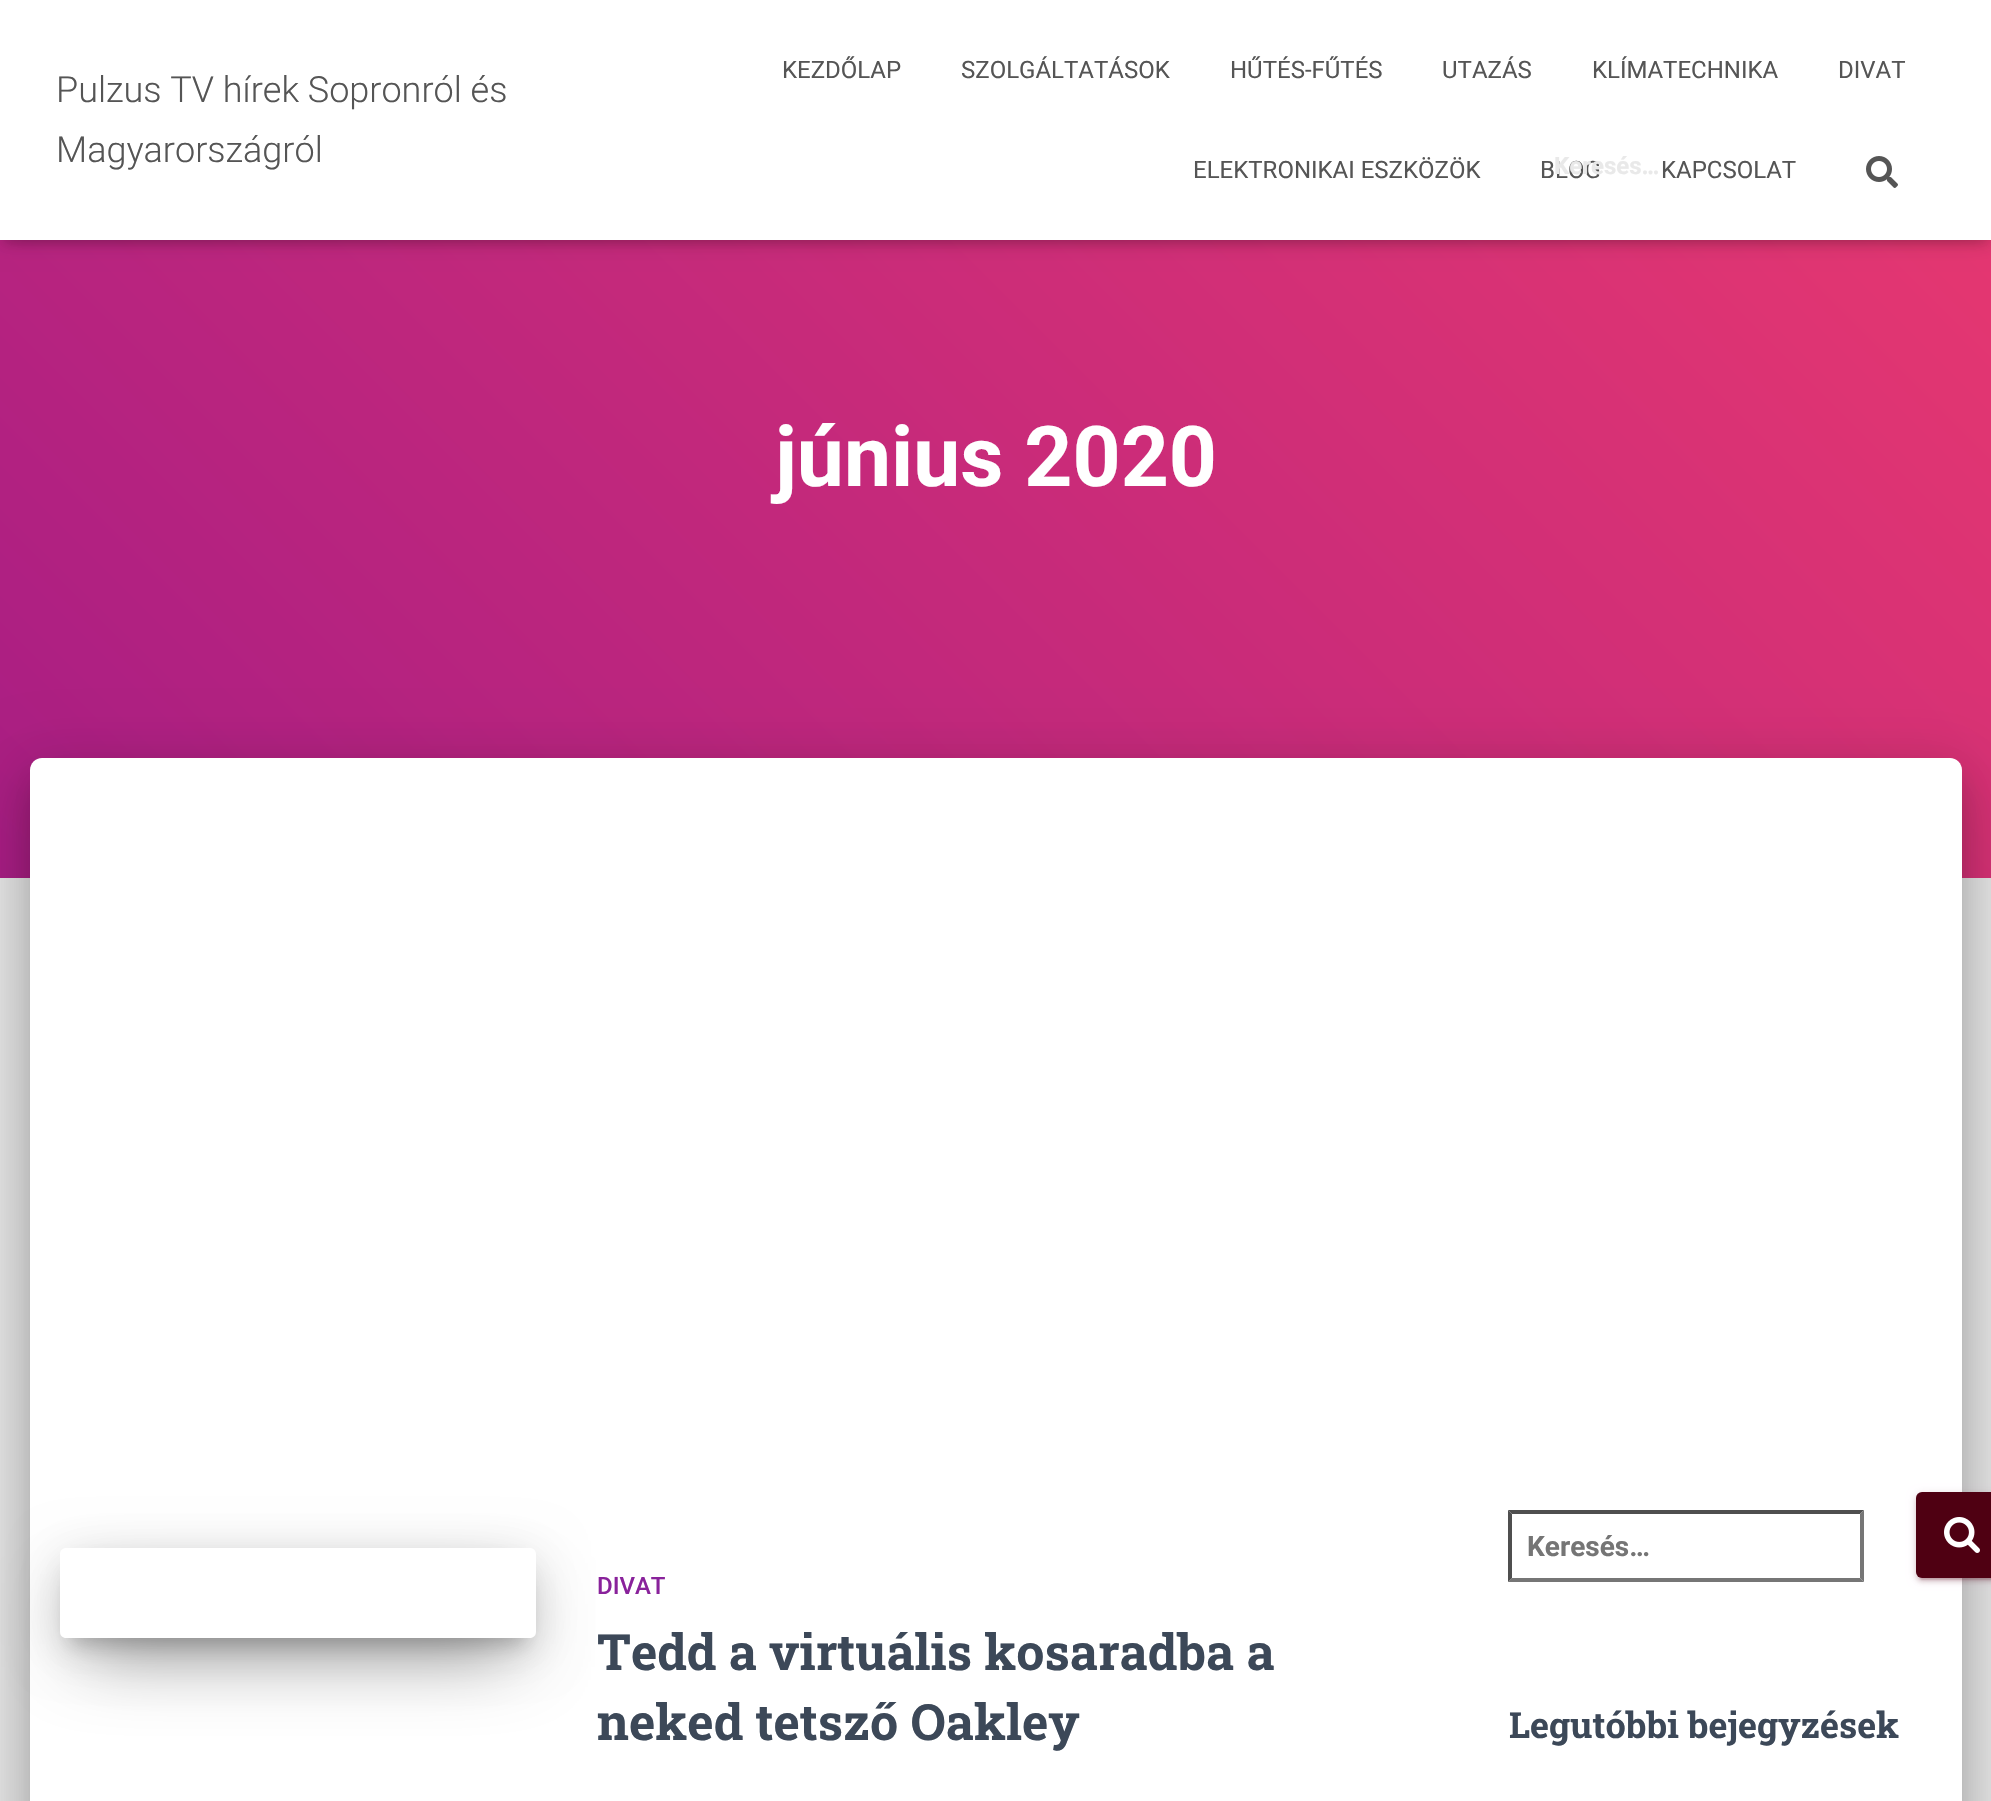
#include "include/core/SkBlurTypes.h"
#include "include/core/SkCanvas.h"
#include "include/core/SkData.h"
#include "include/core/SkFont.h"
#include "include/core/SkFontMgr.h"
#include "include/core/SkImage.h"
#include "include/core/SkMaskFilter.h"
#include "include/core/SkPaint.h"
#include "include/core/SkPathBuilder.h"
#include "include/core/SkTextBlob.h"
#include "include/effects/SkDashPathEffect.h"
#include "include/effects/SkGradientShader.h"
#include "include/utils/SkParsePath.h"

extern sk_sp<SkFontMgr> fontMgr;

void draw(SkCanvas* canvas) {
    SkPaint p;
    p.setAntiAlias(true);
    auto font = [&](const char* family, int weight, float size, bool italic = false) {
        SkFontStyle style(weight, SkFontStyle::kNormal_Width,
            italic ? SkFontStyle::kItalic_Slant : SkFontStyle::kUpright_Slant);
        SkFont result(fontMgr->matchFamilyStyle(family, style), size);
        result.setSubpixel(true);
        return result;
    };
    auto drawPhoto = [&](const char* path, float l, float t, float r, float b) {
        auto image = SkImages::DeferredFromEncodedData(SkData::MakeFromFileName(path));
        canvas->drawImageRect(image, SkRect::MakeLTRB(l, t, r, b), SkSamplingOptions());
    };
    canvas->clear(0xFFE5E5E5);
    {
        const SkColor colors[] = {0xFFA81D84, 0xFFEA396F};
        const float stops[] = {0, 1};
        const SkPoint ends[] = {{279, 1157}, {1714, -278}};
        p.setShader(SkGradientShader::MakeLinear(ends, colors, stops, 2, SkTileMode::kClamp));
        p.setAlpha(255);
    }
    canvas->drawRect(SkRect::MakeLTRB(0, 240, 1991, 878), p);
    p.setShader(nullptr);
    p.setColor(0x1A000000);
    p.setMaskFilter(SkMaskFilter::MakeBlur(kNormal_SkBlurStyle, 5));
    canvas->drawRect(SkRect::MakeLTRB(4, 12, 1988, 244), p);
    p.setMaskFilter(nullptr);
    p.setColor(0x1F000000);
    p.setMaskFilter(SkMaskFilter::MakeBlur(kNormal_SkBlurStyle, 10));
    canvas->drawRect(SkRect::MakeLTRB(0, 2, 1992, 242), p);
    p.setMaskFilter(nullptr);
    p.setColor(0x6B000000);
    p.setMaskFilter(SkMaskFilter::MakeBlur(kNormal_SkBlurStyle, 10));
    canvas->drawRect(SkRect::MakeLTRB(12, 14, 1980, 230), p);
    p.setMaskFilter(nullptr);
    p.setColor(0xFFFFFFFF);
    canvas->drawRect(SkRect::MakeLTRB(0, 0, 1991, 240), p);
    auto font1 = font("Roboto", 300, 36);
    p.setColor(0xFF555555);
    canvas->drawString("Pulzus TV hírek Sopronról és", 56, 102, font1, p);
    canvas->drawString("Magyarországról", 56, 162, font1, p);
    auto font2 = font("Roboto", 400, 24);
    {
        const struct { const char* s; float x, y; } items[] = {
            {"KEZDŐLAP", 782, 78},
            {"SZOLGÁLTATÁSOK", 961, 78},
            {"HŰTÉS-FŰTÉS", 1230, 78},
            {"UTAZÁS", 1442, 78},
            {"KLÍMATECHNIKA", 1592, 78},
            {"DIVAT", 1838, 78},
            {"ELEKTRONIKAI ESZKÖZÖK", 1193, 178},
            {"BLOG", 1540, 178},
        };
        for (auto [s, x, y] : items) {
            canvas->drawString(s, x, y, font2, p);
        }
    }
    auto font3 = font("Roboto", 700, 24);
    p.setColor(0xFFE9E9E9);
    canvas->drawString("Keresés…", 1554, 174, font3, p);
    drawPhoto("media/1.png", 1866, 156, 1898, 188);
    p.setColor(0xFF555555);
    canvas->drawString("KAPCSOLAT", 1661, 178, font2, p);
    auto font4 = font("Roboto", 700, 84);
    p.setColor(0xFFFFFFFF);
    canvas->drawString("június 2020", 775, 486, font4, p);
    p.setColor(0x33000000);
    p.setMaskFilter(SkMaskFilter::MakeBlur(kNormal_SkBlurStyle, 10));
    canvas->drawRoundRect(SkRect::MakeLTRB(40, 784, 1952, 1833), 2, 2, p);
    p.setMaskFilter(nullptr);
    p.setColor(0x1F000000);
    p.setMaskFilter(SkMaskFilter::MakeBlur(kNormal_SkBlurStyle, 30));
    canvas->drawRoundRect(SkRect::MakeLTRB(20, 760, 1972, 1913), 22, 22, p);
    p.setMaskFilter(nullptr);
    p.setColor(0x24000000);
    p.setMaskFilter(SkMaskFilter::MakeBlur(kNormal_SkBlurStyle, 24));
    canvas->drawRoundRect(SkRect::MakeLTRB(26, 786, 1966, 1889), 16, 16, p);
    p.setMaskFilter(nullptr);
    p.setColor(0xFFFFFFFF);
    canvas->drawPath(SkPathBuilder().moveTo(42, 758).lineTo(1950, 758).cubicTo(1956.5f, 758, 1962, 763.5f, 1962, 770).lineTo(1962, 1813).lineTo(30, 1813).lineTo(30, 770).cubicTo(30, 763.5f, 35.5f, 758, 42, 758).close().detach(), p);
    canvas->save();
    canvas->clipPath(SkPathBuilder(SkPathFillType::kEvenOdd).moveTo(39, 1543).lineTo(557, 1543).lineTo(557, 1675).lineTo(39, 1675).close().moveTo(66, 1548).lineTo(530, 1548).cubicTo(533.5f, 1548, 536, 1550.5f, 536, 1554).lineTo(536, 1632).cubicTo(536, 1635.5f, 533.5f, 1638, 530, 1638).lineTo(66, 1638).cubicTo(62.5f, 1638, 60, 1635.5f, 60, 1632).lineTo(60, 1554).cubicTo(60, 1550.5f, 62.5f, 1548, 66, 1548).close().detach(), true);
    p.setColor(0x33000000);
    p.setMaskFilter(SkMaskFilter::MakeBlur(kNormal_SkBlurStyle, 10));
    canvas->drawRect(SkRect::MakeLTRB(70, 1574, 526, 1644), p);
    p.setMaskFilter(nullptr);
    canvas->restore();
    canvas->save();
    canvas->clipPath(SkPathBuilder(SkPathFillType::kEvenOdd).moveTo(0, 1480).lineTo(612, 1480).lineTo(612, 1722).lineTo(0, 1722).close().moveTo(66, 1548).lineTo(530, 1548).cubicTo(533.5f, 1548, 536, 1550.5f, 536, 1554).lineTo(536, 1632).cubicTo(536, 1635.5f, 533.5f, 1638, 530, 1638).lineTo(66, 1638).cubicTo(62.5f, 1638, 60, 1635.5f, 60, 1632).lineTo(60, 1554).cubicTo(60, 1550.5f, 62.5f, 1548, 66, 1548).close().detach(), true);
    p.setColor(0x1F000000);
    p.setMaskFilter(SkMaskFilter::MakeBlur(kNormal_SkBlurStyle, 25));
    canvas->drawRoundRect(SkRect::MakeLTRB(60, 1556, 536, 1646), 6, 6, p);
    p.setMaskFilter(nullptr);
    canvas->restore();
    canvas->save();
    canvas->clipPath(SkPathBuilder(SkPathFillType::kEvenOdd).moveTo(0, 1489).lineTo(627, 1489).lineTo(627, 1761).lineTo(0, 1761).close().moveTo(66, 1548).lineTo(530, 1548).cubicTo(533.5f, 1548, 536, 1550.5f, 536, 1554).lineTo(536, 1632).cubicTo(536, 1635.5f, 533.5f, 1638, 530, 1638).lineTo(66, 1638).cubicTo(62.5f, 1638, 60, 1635.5f, 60, 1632).lineTo(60, 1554).cubicTo(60, 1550.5f, 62.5f, 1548, 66, 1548).close().detach(), true);
    p.setColor(0x8F000000);
    p.setMaskFilter(SkMaskFilter::MakeBlur(kNormal_SkBlurStyle, 38));
    canvas->drawRect(SkRect::MakeLTRB(84, 1604, 512, 1646), p);
    p.setMaskFilter(nullptr);
    canvas->restore();
    auto font5 = font("Roboto", 500, 24);
    p.setColor(0xFF89229B);
    canvas->drawString("DIVAT", 597, 1594, font5, p);
    auto font6 = font("Roboto Slab", 700, 50);
    p.setColor(0xFF3C4858);
    canvas->drawString("Tedd a virtuális kosaradba a", 597, 1670, font6, p);
    canvas->drawString("neked tetsző Oakley", 597, 1740, font6, p);
    p.setColor(0xFF4F4F4F);
    canvas->drawPath(SkPathBuilder().moveTo(1508, 1510).lineTo(1864, 1510).lineTo(1860, 1514).lineTo(1512, 1514).close().detach(), p);
    p.setColor(0xFF767676);
    canvas->drawPath(SkPathBuilder().moveTo(1864, 1510).lineTo(1864, 1582).lineTo(1860, 1578).lineTo(1860, 1514).close().detach(), p);
    canvas->drawPath(SkPathBuilder().moveTo(1864, 1582).lineTo(1508, 1582).lineTo(1512, 1578).lineTo(1860, 1578).close().detach(), p);
    p.setColor(0xFF4F4F4F);
    canvas->drawPath(SkPathBuilder().moveTo(1508, 1582).lineTo(1508, 1510).lineTo(1512, 1514).lineTo(1512, 1578).close().detach(), p);
    auto font7 = font("Roboto", 700, 28);
    p.setColor(0xFF757575);
    canvas->drawString("Keresés…", 1527, 1556, font7, p);
    p.setColor(0x1F4F0012);
    p.setMaskFilter(SkMaskFilter::MakeBlur(kNormal_SkBlurStyle, 5));
    canvas->drawRoundRect(SkRect::MakeLTRB(1916, 1494, 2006, 1580), 6, 6, p);
    p.setMaskFilter(nullptr);
    p.setColor(0x334F0012);
    p.setMaskFilter(SkMaskFilter::MakeBlur(kNormal_SkBlurStyle, 1));
    canvas->drawRoundRect(SkRect::MakeLTRB(1920, 1502, 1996, 1580), 2, 2, p);
    p.setMaskFilter(nullptr);
    p.setColor(0x244F0012);
    p.setMaskFilter(SkMaskFilter::MakeBlur(kNormal_SkBlurStyle, 2));
    canvas->drawRoundRect(SkRect::MakeLTRB(1916, 1496, 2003, 1582), 6, 6, p);
    p.setMaskFilter(nullptr);
    p.setColor(0xFF4F0012);
    canvas->drawRoundRect(SkRect::MakeLTRB(1916, 1492, 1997, 1578), 6, 6, p);
    drawPhoto("media/2.png", 1944, 1517, 1980, 1553);
    auto font8 = font("Roboto Slab", 700, 36);
    p.setColor(0xFF3C4858);
    canvas->drawString("Legutóbbi bejegyzések", 1509, 1738, font8, p);
}
